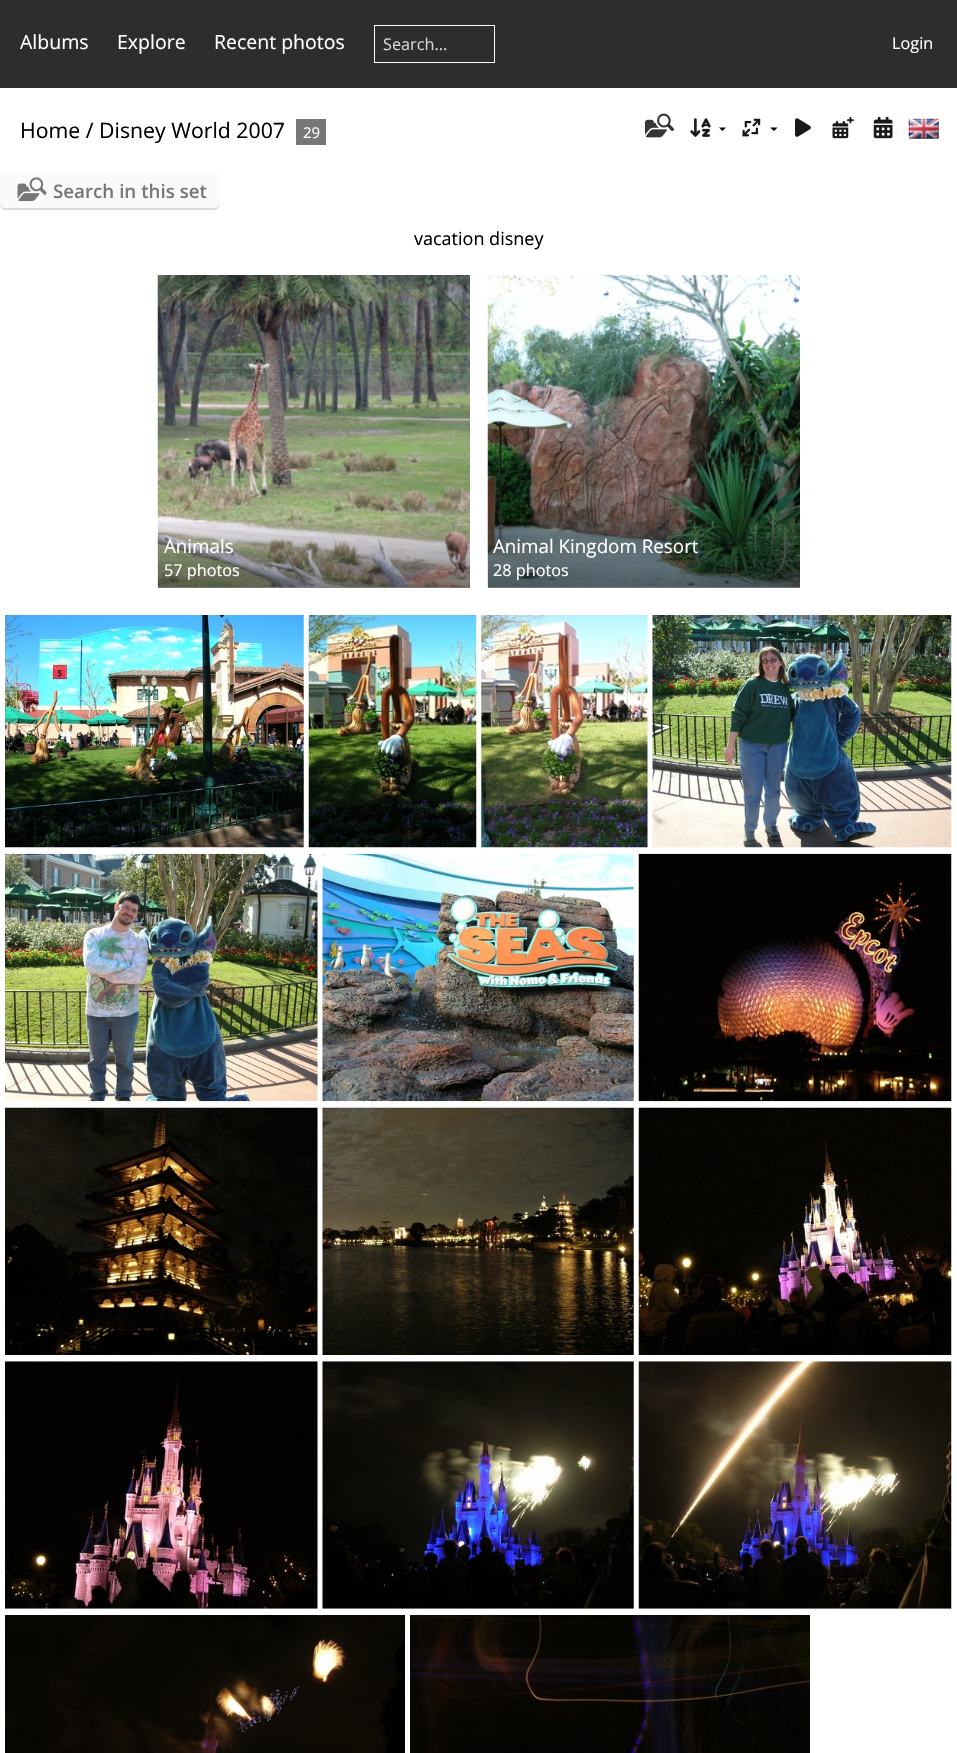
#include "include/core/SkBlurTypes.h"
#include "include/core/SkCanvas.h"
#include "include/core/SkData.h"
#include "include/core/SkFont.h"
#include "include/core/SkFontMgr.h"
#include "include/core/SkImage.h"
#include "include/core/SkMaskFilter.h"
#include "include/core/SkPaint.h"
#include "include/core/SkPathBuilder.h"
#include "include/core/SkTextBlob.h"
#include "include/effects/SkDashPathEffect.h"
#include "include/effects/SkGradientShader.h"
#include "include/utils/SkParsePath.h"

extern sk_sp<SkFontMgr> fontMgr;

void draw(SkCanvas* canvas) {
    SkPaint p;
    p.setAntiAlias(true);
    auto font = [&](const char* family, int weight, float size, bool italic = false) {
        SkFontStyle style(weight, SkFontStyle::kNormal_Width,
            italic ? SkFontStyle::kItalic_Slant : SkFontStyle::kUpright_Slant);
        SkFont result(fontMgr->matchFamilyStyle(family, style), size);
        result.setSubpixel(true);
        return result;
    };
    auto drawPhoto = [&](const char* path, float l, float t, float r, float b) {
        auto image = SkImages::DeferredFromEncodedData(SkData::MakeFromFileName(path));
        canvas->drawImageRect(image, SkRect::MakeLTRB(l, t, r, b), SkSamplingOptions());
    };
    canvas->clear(0xFFFFFFFF);
    p.setColor(0xFF2D2D2D);
    canvas->drawRect(SkRect::MakeLTRB(0, 0, 957, 88), p);
    auto font1 = font("Open Sans", 400, 19.5f);
    p.setColor(0xFFFFFFFF);
    {
        const struct { const char* s; float x, y; } items[] = {
            {"Albums", 20, 49},
            {"Explore", 117, 49},
            {"Recent photos", 214, 49},
        };
        for (auto [s, x, y] : items) {
            canvas->drawString(s, x, y, font1, p);
        }
    }
    p.setStyle(SkPaint::kStroke_Style);
    p.setStrokeWidth(1);
    canvas->drawRect(SkRect::MakeLTRB(374.5f, 25.5f, 494.5f, 62.5f), p);
    auto font2 = font("Open Sans", 400, 16.25f);
    p.setStyle(SkPaint::kFill_Style);
    p.setColor(0xFFD6D6D6);
    canvas->drawString("Search...", 383, 50, font2, p);
    p.setColor(0xFFFFFFFF);
    canvas->drawString("Login", 892, 49, font2, p);
    auto font3 = font("Open Sans", 400, 21.25f);
    p.setColor(0xFF000000);
    canvas->drawString("Home / Disney World 2007", 20, 138, font3, p);
    p.setColor(0xFF777777);
    canvas->drawRect(SkRect::MakeLTRB(296, 119, 326, 145), p);
    auto font4 = font("Open Sans", 400, 15);
    p.setColor(0xFFFFFFFF);
    canvas->drawString("29", 303, 138, font4, p);
    drawPhoto("media/1.png", 645, 113, 675, 138);
    drawPhoto("media/2.png", 690, 118, 711, 137);
    p.setColor(0xFF000000);
    canvas->drawPath(SkPathBuilder().moveTo(719, 127.5f).lineTo(726, 127.5f).lineTo(722.5f, 131).close().moveTo(770, 127.5f).lineTo(777.5f, 127.5f).lineTo(774, 131).close().detach(), p);
    drawPhoto("media/3.png", 832, 116, 854, 139);
    drawPhoto("media/4.png", 873, 116, 893, 139);
    drawPhoto("media/5.png", 742, 118, 761, 137);
    drawPhoto("media/6.png", 795, 118, 811, 137);
    drawPhoto("media/7.png", 908, 118, 939, 139);
    p.setColor(0xFFDBDBDB);
    canvas->drawPath(SkPathBuilder().moveTo(0, 201).lineTo(0, 204).cubicTo(0, 207, 3, 210, 6, 210).lineTo(214, 210).cubicTo(217, 210, 220, 207, 220, 204).lineTo(220, 201).cubicTo(220, 205, 217, 208, 214, 208).lineTo(6, 208).cubicTo(3, 208, 0, 205, 0, 201).close().detach(), p);
    p.setColor(0xFFFAFAFA);
    canvas->drawRoundRect(SkRect::MakeLTRB(0, 173, 220, 208), 6, 6, p);
    drawPhoto("media/8.png", 17, 177, 47, 202);
    auto font5 = font("Open Sans", 600, 18.75f);
    p.setColor(0xFF777777);
    canvas->drawString("Search in this set", 53, 198, font5, p);
    auto font6 = font("Open Sans", 400, 18);
    p.setColor(0xFF000000);
    canvas->drawString("vacation disney", 414, 245, font6, p);
    drawPhoto("media/9.png", 157, 275, 470, 588);
    {
        const SkColor colors[] = {0x03000000, 0x80000000};
        const float stops[] = {0, 1};
        const SkPoint ends[] = {{314, 520}, {314, 589}};
        p.setShader(SkGradientShader::MakeLinear(ends, colors, stops, 2, SkTileMode::kClamp));
        p.setAlpha(255);
    }
    canvas->drawRect(SkRect::MakeLTRB(158, 522, 470, 588), p);
    auto font7 = font("Open Sans", 400, 18.75f);
    p.setShader(nullptr);
    p.setColor(0xFFFFFFFF);
    canvas->drawString("Animals", 164, 553, font7, p);
    canvas->drawString("57 photos", 164, 576, font2, p);
    drawPhoto("media/10.png", 487, 275, 800, 588);
    {
        const SkColor colors[] = {0x03000000, 0x80000000};
        const float stops[] = {0, 1};
        const SkPoint ends[] = {{644, 520}, {644, 589}};
        p.setShader(SkGradientShader::MakeLinear(ends, colors, stops, 2, SkTileMode::kClamp));
        p.setAlpha(255);
    }
    canvas->drawRect(SkRect::MakeLTRB(488, 522, 800, 588), p);
    p.setShader(nullptr);
    p.setColor(0xFFFFFFFF);
    canvas->drawString("Animal Kingdom Resort", 493, 553, font7, p);
    canvas->drawString("28 photos", 493, 576, font2, p);
    drawPhoto("media/11.png", 5, 615, 304, 848);
    drawPhoto("media/12.png", 308, 615, 477, 848);
    drawPhoto("media/13.png", 481, 615, 648, 848);
    drawPhoto("media/14.png", 652, 615, 952, 848);
    drawPhoto("media/15.png", 5, 853, 318, 1102);
    drawPhoto("media/16.png", 322, 853, 634, 1102);
    drawPhoto("media/17.png", 638, 853, 952, 1102);
    drawPhoto("media/18.png", 5, 1107, 318, 1355);
    drawPhoto("media/19.png", 322, 1107, 634, 1355);
    drawPhoto("media/20.png", 638, 1107, 952, 1355);
    drawPhoto("media/21.png", 5, 1361, 318, 1609);
    drawPhoto("media/22.png", 322, 1361, 634, 1609);
    drawPhoto("media/23.png", 638, 1361, 952, 1609);
    drawPhoto("media/24.png", 5, 1615, 405, 1753);
    drawPhoto("media/25.png", 410, 1615, 810, 1753);
}
